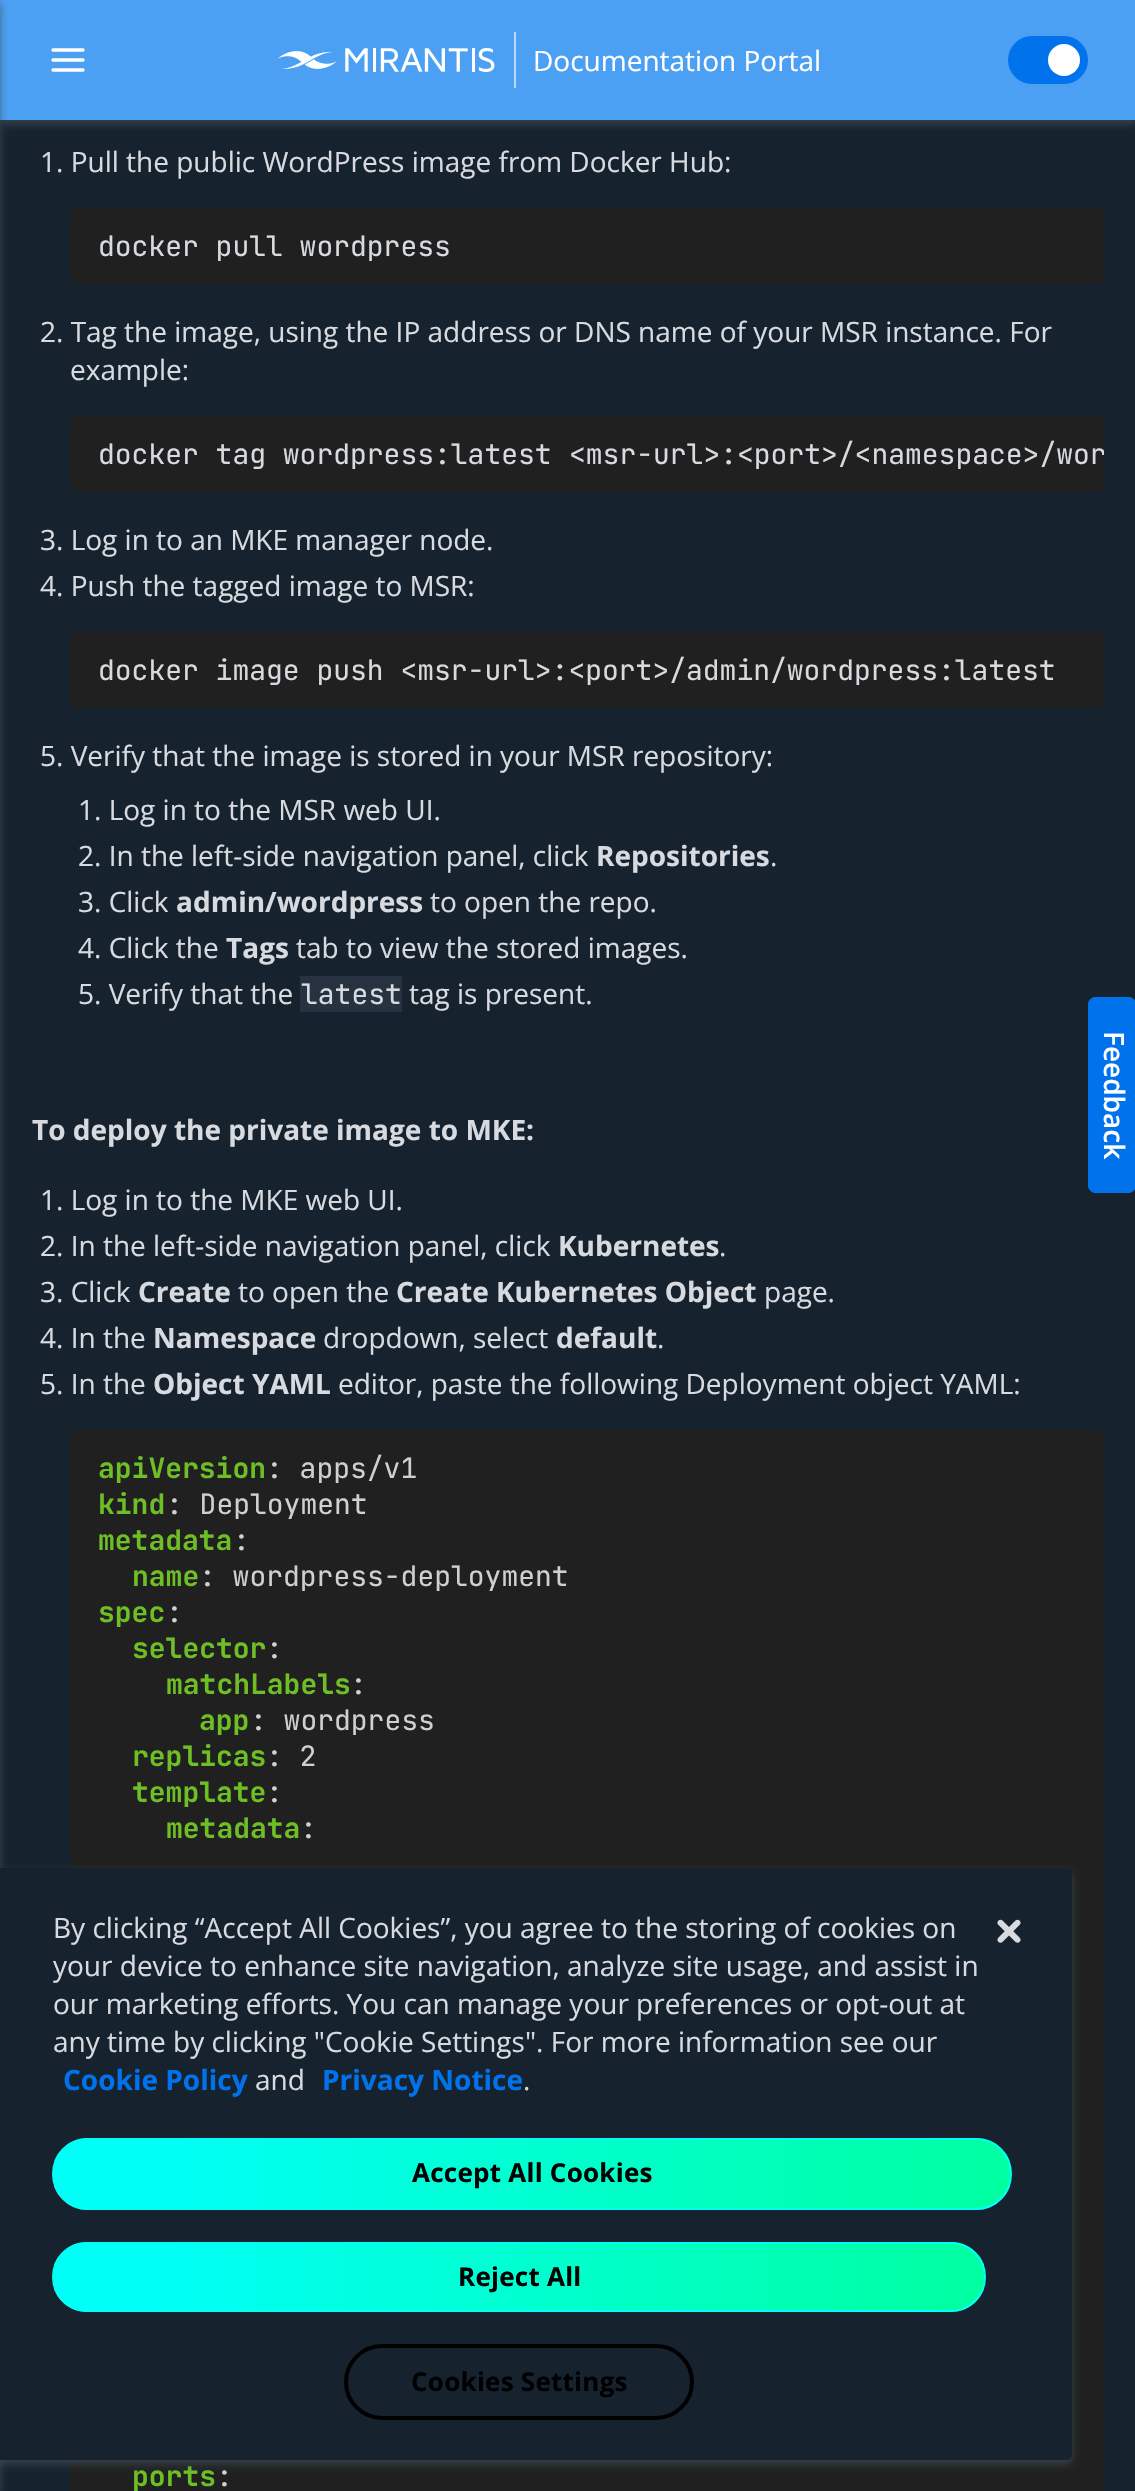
#include "include/core/SkBlurTypes.h"
#include "include/core/SkCanvas.h"
#include "include/core/SkData.h"
#include "include/core/SkFont.h"
#include "include/core/SkFontMgr.h"
#include "include/core/SkImage.h"
#include "include/core/SkMaskFilter.h"
#include "include/core/SkPaint.h"
#include "include/core/SkPathBuilder.h"
#include "include/core/SkTextBlob.h"
#include "include/effects/SkDashPathEffect.h"
#include "include/effects/SkGradientShader.h"
#include "include/utils/SkParsePath.h"

extern sk_sp<SkFontMgr> fontMgr;

void draw(SkCanvas* canvas) {
    SkPaint p;
    p.setAntiAlias(true);
    auto font = [&](const char* family, int weight, float size, bool italic = false) {
        SkFontStyle style(weight, SkFontStyle::kNormal_Width,
            italic ? SkFontStyle::kItalic_Slant : SkFontStyle::kUpright_Slant);
        SkFont result(fontMgr->matchFamilyStyle(family, style), size);
        result.setSubpixel(true);
        return result;
    };
    auto drawTracked = [&](const char* s, float x, float y, const SkFont& font, const SkPaint& ink, float letter, float word) {
        std::vector<SkGlyphID> glyphs(font.countText(s, strlen(s), SkTextEncoding::kUTF8));
        std::vector<float> xs(glyphs.size());
        font.textToGlyphs(s, strlen(s), SkTextEncoding::kUTF8, glyphs);
        font.getXPos(glyphs, xs, x);
        float extra = 0;
        for (size_t i = 0; i < glyphs.size(); i++) {
            xs[i] += extra;
            extra += letter + word * (glyphs[i] == font.unicharToGlyph(' '));
        }
        canvas->drawTextBlob(SkTextBlob::MakeFromPosHGlyphs(glyphs, xs, y, font), 0, 0, ink);
    };
    auto drawPhoto = [&](const char* path, float l, float t, float r, float b) {
        auto image = SkImages::DeferredFromEncodedData(SkData::MakeFromFileName(path));
        canvas->drawImageRect(image, SkRect::MakeLTRB(l, t, r, b), SkSamplingOptions());
    };
    canvas->clear(0xFF17222F);
    p.setColor(0xBF404D59);
    p.setMaskFilter(SkMaskFilter::MakeBlur(kNormal_SkBlurStyle, 4));
    canvas->drawRect(SkRect::MakeLTRB(0, 4, 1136, 124), p);
    p.setMaskFilter(nullptr);
    p.setColor(0xFF4BA0F3);
    canvas->drawRect(SkRect::MakeLTRB(0, 0, 1135, 120), p);
    p.setColor(0xBF404D59);
    p.setMaskFilter(SkMaskFilter::MakeBlur(kNormal_SkBlurStyle, 4));
    canvas->drawRect(SkRect::MakeLTRB(-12, 4, 0, 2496), p);
    p.setMaskFilter(nullptr);
    p.setStyle(SkPaint::kStroke_Style);
    p.setStrokeWidth(3.3f);
    p.setStrokeCap(SkPaint::kRound_Cap);
    p.setStrokeJoin(SkPaint::kRound_Join);
    p.setColor(0xFFFFFFFF);
    canvas->drawPath(SkPathBuilder().moveTo(53, 60).lineTo(83, 60).moveTo(53, 50).lineTo(83, 50).moveTo(53, 70).lineTo(83, 70).detach(), p);
    drawPhoto("media/1.png", 277, 48, 495, 72);
    p.setStyle(SkPaint::kFill_Style);
    p.setColor(0xFFB7D9FA);
    canvas->drawRect(SkRect::MakeLTRB(514, 32, 516, 88), p);
    auto font1 = font("Open Sans", 400, 28);
    p.setColor(0xFFFFFFFF);
    canvas->drawString("Documentation Portal", 533, 71, font1, p);
    p.setColor(0xFF0073EC);
    canvas->drawRoundRect(SkRect::MakeLTRB(1008, 36, 1088, 84), 24, 24, p);
    p.setColor(0xFFFFFFFF);
    canvas->drawCircle(1064, 60, 16, p);
    p.setColor(0xFFD7DADE);
    canvas->drawString("1. Pull the public WordPress image from Docker Hub:", 40, 172, font1, p);
    p.setColor(0xFF202020);
    canvas->drawRoundRect(SkRect::MakeLTRB(70, 208, 1104, 284), 6, 6, p);
    auto font2 = font("JetBrains Mono", 400, 28);
    p.setColor(0xFFD7DADE);
    canvas->drawString("docker pull wordpress", 98, 256, font2, p);
    canvas->drawString("2. Tag the image, using the IP address or DNS name of your MSR instance. For", 40, 342, font1, p);
    canvas->drawString("example:", 70, 380, font1, p);
    p.setColor(0xFF202020);
    canvas->drawRoundRect(SkRect::MakeLTRB(70, 416, 1104, 492), 6, 6, p);
    p.setColor(0xFFD7DADE);
    canvas->drawString("docker tag wordpress:latest", 98, 464, font2, p);
    canvas->save();
    canvas->clipRect(SkRect::MakeLTRB(70, 416, 1104, 492));
    canvas->drawString("<msr-url>:<port>/<namespace>/wor", 569, 464, font2, p);
    canvas->restore();
    canvas->drawString("3. Log in to an MKE manager node.", 40, 550, font1, p);
    canvas->drawString("4. Push the tagged image to MSR:", 40, 596, font1, p);
    p.setColor(0xFF202020);
    canvas->drawRoundRect(SkRect::MakeLTRB(70, 632, 1104, 708), 6, 6, p);
    p.setColor(0xFFD7DADE);
    canvas->drawString("docker image push <msr-url>:<port>/admin/wordpress:latest", 98, 680, font2, p);
    {
        const struct { const char* s; float x, y; } items[] = {
            {"5. Verify that the image is stored in your MSR repository:", 40, 766},
            {"1. Log in to the MSR web UI.", 78, 820},
            {"2. In the left-side navigation panel, click", 78, 866},
        };
        for (auto [s, x, y] : items) {
            canvas->drawString(s, x, y, font1, p);
        }
    }
    auto font3 = font("Open Sans", 700, 28);
    canvas->drawString("Repositories", 596, 866, font3, p);
    canvas->drawString(".", 770, 866, font1, p);
    canvas->drawString("3. Click", 78, 912, font1, p);
    canvas->drawString("admin/wordpress", 176, 912, font3, p);
    canvas->drawString("to open the repo.", 430, 912, font1, p);
    canvas->drawString("4. Click the", 78, 958, font1, p);
    canvas->drawString("Tags", 226, 958, font3, p);
    canvas->drawString("tab to view the stored images.", 296, 958, font1, p);
    canvas->drawString("5. Verify that the", 78, 1004, font1, p);
    p.setColor(0xFF26323F);
    canvas->drawRect(SkRect::MakeLTRB(300, 976, 402, 1012), p);
    p.setColor(0xFFD7DADE);
    canvas->drawString("latest", 301, 1004, font2, p);
    canvas->drawString("tag is present.", 409, 1004, font1, p);
    canvas->drawString("To deploy the private image to MKE:", 32, 1140, font3, p);
    canvas->drawString("1. Log in to the MKE web UI.", 40, 1210, font1, p);
    canvas->drawString("2. In the left-side navigation panel, click", 40, 1256, font1, p);
    canvas->drawString("Kubernetes", 558, 1256, font3, p);
    canvas->drawString(".", 719, 1256, font1, p);
    canvas->drawString("3. Click", 40, 1302, font1, p);
    canvas->drawString("Create", 138, 1302, font3, p);
    canvas->drawString("to open the", 238, 1302, font1, p);
    canvas->drawString("Create Kubernetes Object", 396, 1302, font3, p);
    canvas->drawString("page.", 764, 1302, font1, p);
    canvas->drawString("4. In the", 40, 1348, font1, p);
    canvas->drawString("Namespace", 153, 1348, font3, p);
    canvas->drawString("dropdown, select", 323, 1348, font1, p);
    canvas->drawString("default", 556, 1348, font3, p);
    canvas->drawString(".", 657, 1348, font1, p);
    canvas->drawString("5. In the", 40, 1394, font1, p);
    canvas->drawString("Object YAML", 153, 1394, font3, p);
    canvas->drawString("editor, paste the following Deployment object YAML:", 338, 1394, font1, p);
    p.setColor(0xFF202020);
    canvas->drawRoundRect(SkRect::MakeLTRB(70, 1430, 1104, 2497), 6, 6, p);
    auto font4 = font("JetBrains Mono", 700, 28);
    p.setColor(0xFF6EBF26);
    canvas->drawString("apiVersion", 98, 1478, font4, p);
    p.setColor(0xFFD0D0D0);
    canvas->drawString(": apps/v1", 266, 1478, font2, p);
    p.setColor(0xFF6EBF26);
    canvas->drawString("kind", 98, 1514, font4, p);
    p.setColor(0xFFD0D0D0);
    canvas->drawString(": Deployment", 166, 1514, font2, p);
    p.setColor(0xFF6EBF26);
    canvas->drawString("metadata", 98, 1550, font4, p);
    p.setColor(0xFFD0D0D0);
    canvas->drawString(":", 233, 1550, font2, p);
    p.setColor(0xFF6EBF26);
    canvas->drawString("name", 132, 1586, font4, p);
    p.setColor(0xFFD0D0D0);
    canvas->drawString(": wordpress-deployment", 199, 1586, font2, p);
    p.setColor(0xFF6EBF26);
    canvas->drawString("spec", 98, 1622, font4, p);
    p.setColor(0xFFD0D0D0);
    canvas->drawString(":", 166, 1622, font2, p);
    p.setColor(0xFF6EBF26);
    canvas->drawString("selector", 132, 1658, font4, p);
    p.setColor(0xFFD0D0D0);
    canvas->drawString(":", 266, 1658, font2, p);
    p.setColor(0xFF6EBF26);
    canvas->drawString("matchLabels", 166, 1694, font4, p);
    p.setColor(0xFFD0D0D0);
    canvas->drawString(":", 350, 1694, font2, p);
    p.setColor(0xFF6EBF26);
    canvas->drawString("app", 199, 1730, font4, p);
    p.setColor(0xFFD0D0D0);
    canvas->drawString(": wordpress", 250, 1730, font2, p);
    p.setColor(0xFF6EBF26);
    canvas->drawString("replicas", 132, 1766, font4, p);
    p.setColor(0xFFD0D0D0);
    canvas->drawString(": 2", 266, 1766, font2, p);
    p.setColor(0xFF6EBF26);
    canvas->drawString("template", 132, 1802, font4, p);
    p.setColor(0xFFD0D0D0);
    canvas->drawString(":", 266, 1802, font2, p);
    p.setColor(0xFF6EBF26);
    canvas->drawString("metadata", 166, 1838, font4, p);
    p.setColor(0xFFD0D0D0);
    canvas->drawString(":", 300, 1838, font2, p);
    p.setColor(0xFF6EBF26);
    canvas->drawString("ports", 132, 2486, font4, p);
    p.setColor(0xFFD0D0D0);
    canvas->drawString(":", 216, 2486, font2, p);
    p.setColor(0xFF0073EC);
    canvas->drawPath(SkPathBuilder().moveTo(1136, 1005).lineTo(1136, 1185).cubicTo(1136, 1189, 1132, 1193, 1128, 1193).lineTo(1096, 1193).cubicTo(1092, 1193, 1088, 1189, 1088, 1185).lineTo(1088, 1005).cubicTo(1088, 1000, 1092, 997, 1096, 997).lineTo(1128, 997).cubicTo(1132, 997, 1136, 1000, 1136, 1005).close().detach(), p);
    p.setStyle(SkPaint::kStroke_Style);
    p.setStrokeWidth(2);
    p.setStrokeCap(SkPaint::kButt_Cap);
    p.setStrokeJoin(SkPaint::kMiter_Join);
    canvas->drawPath(SkPathBuilder().moveTo(1135, 1005).lineTo(1135, 1185).cubicTo(1135, 1189, 1132, 1192, 1128, 1192).lineTo(1096, 1192).cubicTo(1092, 1192, 1089, 1189, 1089, 1185).lineTo(1089, 1005).cubicTo(1089, 1001, 1092, 998, 1096, 998).lineTo(1128, 998).cubicTo(1132, 998, 1135, 1001, 1135, 1005).close().detach(), p);
    auto font5 = font("Open Sans", 600, 28);
    p.setStyle(SkPaint::kFill_Style);
    p.setColor(0xFFFFFFFF);
    canvas->save();
    canvas->rotate(90, 1104, 1031);
    canvas->drawString("Feedback", 1104, 1031, font5, p);
    canvas->restore();
    p.setColor(0xBF404D59);
    p.setMaskFilter(SkMaskFilter::MakeBlur(kNormal_SkBlurStyle, 4));
    canvas->drawRoundRect(SkRect::MakeLTRB(-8, 1872, 1072, 2464), 5, 5, p);
    p.setMaskFilter(nullptr);
    p.setColor(0xFF17222F);
    canvas->drawRoundRect(SkRect::MakeLTRB(-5, 1868, 1072, 2460), 5, 5, p);
    p.setColor(0xFFD7DADE);
    {
        const struct { const char* s; float x, y; } items[] = {
            {"By clicking “Accept All Cookies”, you agree to the storing of cookies on", 53, 1938},
            {"your device to enhance site navigation, analyze site usage, and assist in", 53, 1976},
            {"our marketing efforts. You can manage your preferences or opt-out at", 53, 2014},
            {"any time by clicking \"Cookie Settings\". For more information see our", 53, 2052},
        };
        for (auto [s, x, y] : items) {
            canvas->drawString(s, x, y, font1, p);
        }
    }
    p.setColor(0xFF0073EC);
    canvas->drawString("Cookie Policy", 63, 2090, font3, p);
    p.setColor(0xFFD7DADE);
    canvas->drawString("and", 255, 2090, font1, p);
    p.setColor(0xFF0073EC);
    canvas->drawString("Privacy Notice", 322, 2090, font3, p);
    p.setColor(0xFFD7DADE);
    canvas->drawString(".", 523, 2090, font1, p);
    canvas->drawPath(SkPathBuilder().moveTo(1019.5f, 1920.5f).cubicTo(1021, 1922, 1021, 1924, 1019.5f, 1925).lineTo(1002.5f, 1942).cubicTo(1001.5f, 1943, 999.5f, 1943, 998.5f, 1942).cubicTo(997, 1941, 997, 1939, 998.5f, 1937.5f).lineTo(1015.5f, 1920.5f).cubicTo(1016.5f, 1919.5f, 1018.5f, 1919.5f, 1019.5f, 1920.5f).close().detach(), p);
    canvas->drawPath(SkPathBuilder().moveTo(998.5f, 1920.5f).cubicTo(999.5f, 1919.5f, 1001.5f, 1919.5f, 1002.5f, 1920.5f).lineTo(1019.5f, 1937.5f).cubicTo(1021, 1939, 1021, 1941, 1019.5f, 1942).cubicTo(1018.5f, 1943, 1016.5f, 1943, 1015.5f, 1942).lineTo(998.5f, 1925).cubicTo(997, 1924, 997, 1922, 998.5f, 1920.5f).close().detach(), p);
    canvas->save();
    canvas->clipPath(SkPathBuilder().moveTo(88, 2138).lineTo(976, 2138).cubicTo(996, 2138, 1012, 2154, 1012, 2174).cubicTo(1012, 2194, 996, 2210, 976, 2210).lineTo(88, 2210).cubicTo(68, 2210, 52, 2194, 52, 2174).cubicTo(52, 2154, 68, 2138, 88, 2138).close().detach(), true);
    {
        const SkColor colors[] = {0xFF00FFF7, 0xFF00FFA0};
        const float stops[] = {0.1f, 1};
        const SkPoint ends[] = {{54, 2174}, {1010, 2174}};
        p.setShader(SkGradientShader::MakeLinear(ends, colors, stops, 2, SkTileMode::kClamp));
        p.setAlpha(255);
    }
    canvas->drawRect(SkRect::MakeLTRB(54, 2138, 1010, 2210), p);
    canvas->restore();
    p.setStyle(SkPaint::kStroke_Style);
    p.setShader(nullptr);
    p.setColor(0xFF00FFF7);
    canvas->drawRoundRect(SkRect::MakeLTRB(53, 2139, 1011, 2209), 35, 35, p);
    auto font6 = font("Open Sans", 700, 26);
    p.setStyle(SkPaint::kFill_Style);
    p.setColor(0xFF000000);
    drawTracked("Accept All Cookies", 412, 2182, font6, p, 0.25f, 0);
    canvas->save();
    canvas->clipPath(SkPathBuilder().moveTo(87, 2242).lineTo(951, 2242).cubicTo(970.5f, 2242, 986, 2257.5f, 986, 2277).cubicTo(986, 2296.5f, 970.5f, 2312, 951, 2312).lineTo(87, 2312).cubicTo(67.5f, 2312, 52, 2296.5f, 52, 2277).cubicTo(52, 2257.5f, 67.5f, 2242, 87, 2242).close().detach(), true);
    {
        const SkColor colors[] = {0xFF00FFF7, 0xFF00FFA0};
        const float stops[] = {0.1f, 1};
        const SkPoint ends[] = {{54, 2277}, {984, 2277}};
        p.setShader(SkGradientShader::MakeLinear(ends, colors, stops, 2, SkTileMode::kClamp));
        p.setAlpha(255);
    }
    canvas->drawRect(SkRect::MakeLTRB(54, 2242, 984, 2312), p);
    canvas->restore();
    p.setStyle(SkPaint::kStroke_Style);
    p.setShader(nullptr);
    p.setColor(0xFF00FFF7);
    canvas->drawRoundRect(SkRect::MakeLTRB(53, 2243, 985, 2311), 34, 34, p);
    p.setStyle(SkPaint::kFill_Style);
    p.setColor(0xFF000000);
    drawTracked("Reject All", 458, 2286, font6, p, 0.25f, 0);
    p.setStyle(SkPaint::kStroke_Style);
    p.setStrokeWidth(4);
    canvas->drawRoundRect(SkRect::MakeLTRB(346, 2346, 692, 2418), 36, 36, p);
    p.setStyle(SkPaint::kFill_Style);
    drawTracked("Cookies Settings", 411, 2391, font6, p, 0.25f, 0);
}
